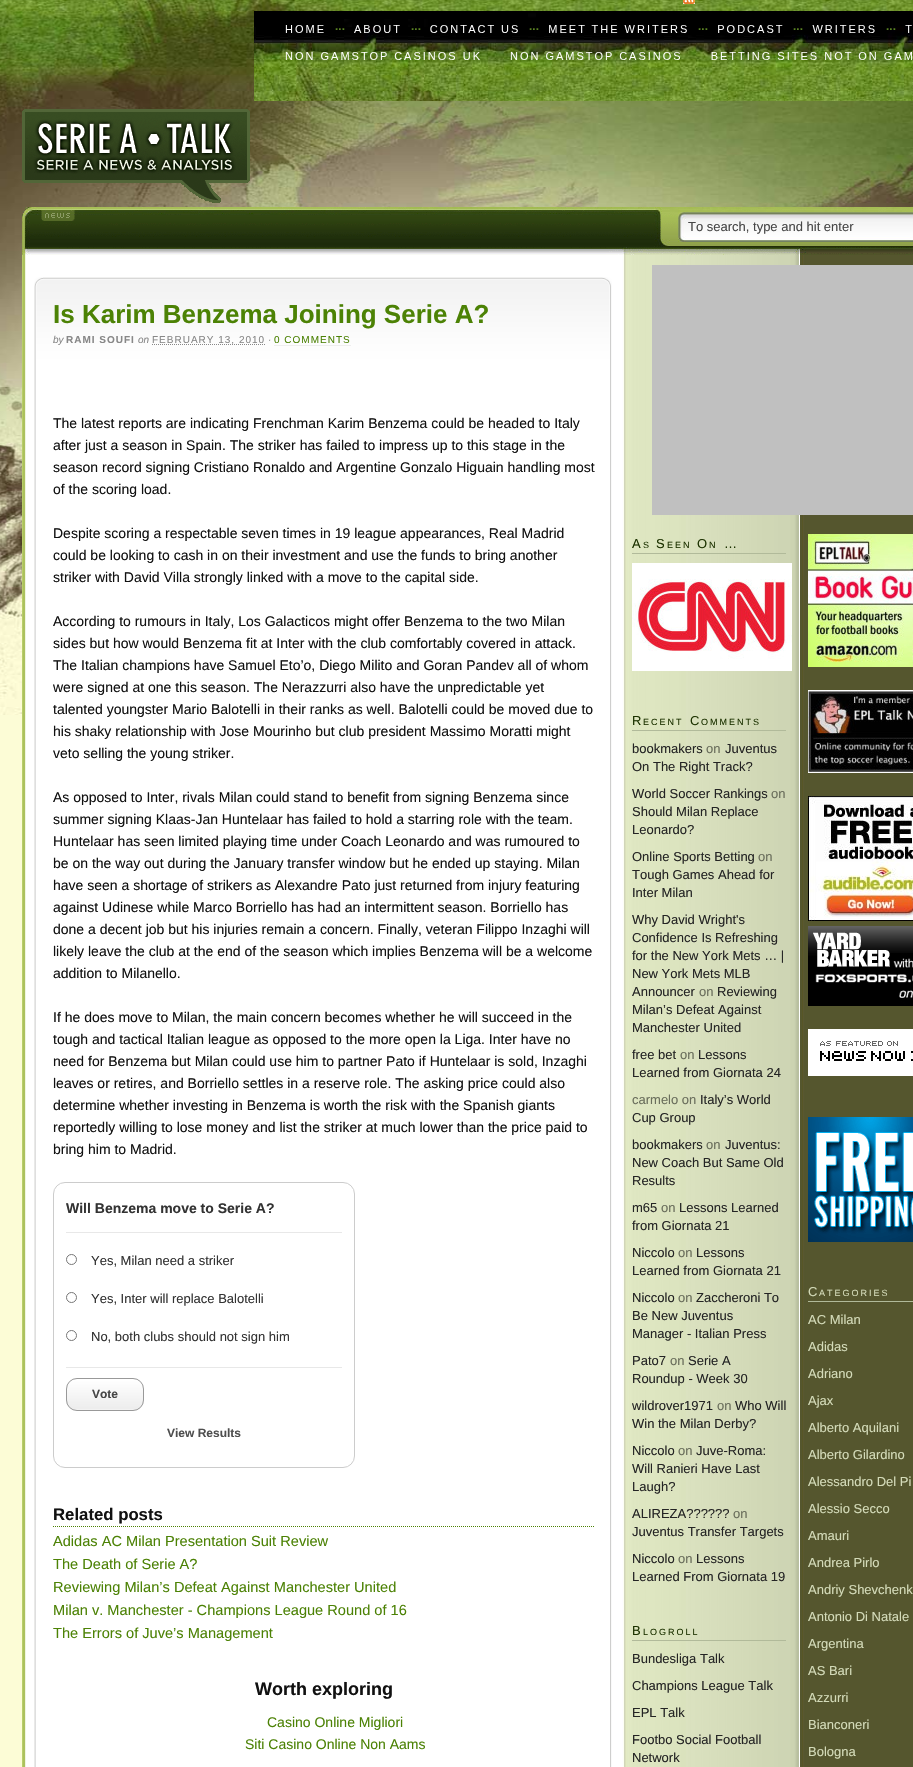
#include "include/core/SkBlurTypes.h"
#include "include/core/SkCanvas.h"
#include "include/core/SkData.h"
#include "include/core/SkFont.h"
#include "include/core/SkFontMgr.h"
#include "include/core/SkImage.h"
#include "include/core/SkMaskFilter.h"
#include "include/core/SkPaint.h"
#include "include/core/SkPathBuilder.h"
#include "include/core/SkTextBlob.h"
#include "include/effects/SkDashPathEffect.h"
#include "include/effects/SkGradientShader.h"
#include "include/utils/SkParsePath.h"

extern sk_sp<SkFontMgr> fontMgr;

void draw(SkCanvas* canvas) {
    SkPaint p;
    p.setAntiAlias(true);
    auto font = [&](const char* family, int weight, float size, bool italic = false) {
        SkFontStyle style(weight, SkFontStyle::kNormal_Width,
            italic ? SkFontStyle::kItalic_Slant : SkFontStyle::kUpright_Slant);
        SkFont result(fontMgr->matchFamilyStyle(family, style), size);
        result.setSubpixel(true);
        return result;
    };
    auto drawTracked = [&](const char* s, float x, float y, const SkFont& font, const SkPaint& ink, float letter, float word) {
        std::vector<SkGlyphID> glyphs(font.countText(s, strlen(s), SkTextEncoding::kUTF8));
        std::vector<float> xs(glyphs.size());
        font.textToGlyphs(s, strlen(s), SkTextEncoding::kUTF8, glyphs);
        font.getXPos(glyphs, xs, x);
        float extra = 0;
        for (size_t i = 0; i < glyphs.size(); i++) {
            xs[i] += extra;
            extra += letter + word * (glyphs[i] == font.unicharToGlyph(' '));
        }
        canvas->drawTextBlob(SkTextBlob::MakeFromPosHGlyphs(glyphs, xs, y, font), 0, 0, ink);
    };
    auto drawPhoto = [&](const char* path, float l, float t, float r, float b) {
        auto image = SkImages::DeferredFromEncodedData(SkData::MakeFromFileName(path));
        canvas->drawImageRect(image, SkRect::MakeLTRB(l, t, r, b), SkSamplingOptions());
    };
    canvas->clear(0xFFFCFCD6);
    drawPhoto("media/1.png", 0, 0, 913, 715);
    drawPhoto("media/2.png", 683, 0, 695, 4);
    drawPhoto("media/3.png", 254, 11, 913, 101);
    drawPhoto("media/4.png", 22, 109, 250, 203);
    drawPhoto("media/5.png", 22, 207, 913, 255);
    drawPhoto("media/6.png", 22, 255, 913, 1767);
    drawPhoto("media/7.png", 34, 277, 612, 412);
    auto font1 = font("Liberation Sans", 700, 26);
    p.setColor(0xFF4C8205);
    canvas->drawString("Is Karim Benzema Joining Serie A?", 53, 323, font1, p);
    auto font2 = font("Liberation Sans", 400, 10, true);
    p.setColor(0xFF888888);
    canvas->drawString("by", 53, 343, font2, p);
    auto font3 = font("Liberation Sans", 700, 10);
    drawTracked("RAMI SOUFI", 66, 343, font3, p, 1, 0);
    canvas->drawString("on", 138, 343, font2, p);
    p.setStyle(SkPaint::kStroke_Style);
    p.setStrokeWidth(1);
    p.setPathEffect(SkDashPathEffect::Make({{1, 1}}, 0));
    canvas->drawPath(SkPathBuilder().moveTo(152, 344.5f).lineTo(265, 344.5f).detach(), p);
    p.setPathEffect(nullptr);
    auto font4 = font("Liberation Sans", 400, 10);
    p.setStyle(SkPaint::kFill_Style);
    drawTracked("FEBRUARY 13, 2010", 152, 343, font4, p, 1, 0);
    canvas->drawString("·", 268, 343, font2, p);
    p.setColor(0xFF4C8205);
    drawTracked("0 COMMENTS", 274, 343, font4, p, 1, 0);
    p.setColor(0xFFEEEEEE);
    canvas->drawRect(SkRect::MakeLTRB(274, 345, 351, 346), p);
    drawPhoto("media/8.png", 34, 412, 612, 1767);
    auto font5 = font("Liberation Sans", 400, 14);
    p.setColor(0xFF111111);
    {
        const struct { const char* s; float x, y; } items[] = {
            {"The latest reports are indicating Frenchman Karim Benzema could be headed to Italy", 53, 428},
            {"after just a season in Spain. The striker has failed to impress up to this stage in the", 53, 450},
            {"season record signing Cristiano Ronaldo and Argentine Gonzalo Higuain handling most", 53, 472},
            {"of the scoring load.", 53, 494},
            {"Despite scoring a respectable seven times in 19 league appearances, Real Madrid", 53, 538},
            {"could be looking to cash in on their investment and use the funds to bring another", 53, 560},
            {"striker with David Villa strongly linked with a move to the capital side.", 53, 582},
            {"According to rumours in Italy, Los Galacticos might offer Benzema to the two Milan", 53, 626},
            {"sides but how would Benzema fit at Inter with the club comfortably covered in attack.", 53, 648},
            {"The Italian champions have Samuel Eto’o, Diego Milito and Goran Pandev all of whom", 53, 670},
            {"were signed at one this season. The Nerazzurri also have the unpredictable yet", 53, 692},
            {"talented youngster Mario Balotelli in their ranks as well. Balotelli could be moved due to", 53, 714},
            {"his shaky relationship with Jose Mourinho but club president Massimo Moratti might", 53, 736},
            {"veto selling the young striker.", 53, 758},
            {"As opposed to Inter, rivals Milan could stand to benefit from signing Benzema since", 53, 802},
            {"summer signing Klaas-Jan Huntelaar has failed to hold a starring role with the team.", 53, 824},
            {"Huntelaar has seen limited playing time under Coach Leonardo and was rumoured to", 53, 846},
            {"be on the way out during the January transfer window but he ended up staying. Milan", 53, 868},
            {"have seen a shortage of strikers as Alexandre Pato just returned from injury featuring", 53, 890},
            {"against Udinese while Marco Borriello has had an intermittent season. Borriello has", 53, 912},
            {"done a decent job but his injuries remain a concern. Finally, veteran Filippo Inzaghi will", 53, 934},
            {"likely leave the club at the end of the season which implies Benzema will be a welcome", 53, 956},
            {"addition to Milanello.", 53, 978},
            {"If he does move to Milan, the main concern becomes whether he will succeed in the", 53, 1022},
            {"tough and tactical Italian league as opposed to the more open la Liga. Inter have no", 53, 1044},
            {"need for Benzema but Milan could use him to partner Pato if Huntelaar is sold, Inzaghi", 53, 1066},
            {"leaves or retires, and Borriello settles in a reserve role. The asking price could also", 53, 1088},
            {"determine whether investing in Benzema is worth the risk with the Spanish giants", 53, 1110},
            {"reportedly willing to lose money and list the striker at much lower than the price paid to", 53, 1132},
            {"bring him to Madrid.", 53, 1154},
        };
        for (auto [s, x, y] : items) {
            canvas->drawString(s, x, y, font5, p);
        }
    }
    p.setStyle(SkPaint::kStroke_Style);
    p.setColor(0xFFCCCCCC);
    canvas->drawRoundRect(SkRect::MakeLTRB(53.5f, 1182.5f, 354.5f, 1467.5f), 11.5f, 11.5f, p);
    auto font6 = font("Liberation Sans", 700, 14);
    p.setStyle(SkPaint::kFill_Style);
    p.setColor(0xFF333333);
    canvas->drawString("Will Benzema move to Serie A?", 66, 1213, font6, p);
    p.setColor(0xFFE8E8E8);
    canvas->drawRect(SkRect::MakeLTRB(66, 1232, 342, 1233), p);
    canvas->drawRect(SkRect::MakeLTRB(66, 1367, 342, 1368), p);
    p.setStyle(SkPaint::kStroke_Style);
    p.setColor(0xFF767676);
    canvas->drawCircle(71.5f, 1259.5f, 5, p);
    auto font7 = font("Liberation Sans", 400, 13);
    p.setStyle(SkPaint::kFill_Style);
    p.setColor(0xFF333333);
    canvas->drawString("Yes, Milan need a striker", 91, 1265, font7, p);
    p.setStyle(SkPaint::kStroke_Style);
    p.setColor(0xFF767676);
    canvas->drawCircle(71.5f, 1297.5f, 5, p);
    p.setStyle(SkPaint::kFill_Style);
    p.setColor(0xFF333333);
    canvas->drawString("Yes, Inter will replace Balotelli", 91, 1303, font7, p);
    p.setStyle(SkPaint::kStroke_Style);
    p.setColor(0xFF767676);
    canvas->drawCircle(71.5f, 1335.5f, 5, p);
    p.setStyle(SkPaint::kFill_Style);
    p.setColor(0xFF333333);
    canvas->drawString("No, both clubs should not sign him", 91, 1341, font7, p);
    p.setColor(0xFFF2F2F2);
    canvas->drawRoundRect(SkRect::MakeLTRB(66, 1378, 144, 1411), 11, 11, p);
    drawPhoto("media/9.png", 66, 1379, 144, 1409);
    p.setStyle(SkPaint::kStroke_Style);
    p.setColor(0xFF999999);
    canvas->drawRoundRect(SkRect::MakeLTRB(66.5f, 1378.5f, 143.5f, 1410.5f), 10.5f, 10.5f, p);
    auto font8 = font("Liberation Sans", 700, 12);
    p.setStyle(SkPaint::kFill_Style);
    p.setColor(0xFF464646);
    canvas->drawString("Vote", 92, 1398, font8, p);
    p.setColor(0xFF4E4E4E);
    canvas->drawString("View Results", 167, 1437, font8, p);
    p.setStyle(SkPaint::kStroke_Style);
    p.setColor(0xFF4C8205);
    p.setPathEffect(SkDashPathEffect::Make({{1, 1}}, 0));
    canvas->drawPath(SkPathBuilder().moveTo(53, 1526.5f).lineTo(595, 1526.5f).detach(), p);
    p.setPathEffect(nullptr);
    auto font9 = font("Liberation Sans", 700, 16.75f);
    p.setStyle(SkPaint::kFill_Style);
    p.setColor(0xFF111111);
    canvas->drawString("Related posts", 53, 1520, font9, p);
    auto font10 = font("Liberation Sans", 400, 14.6f);
    p.setColor(0xFF4C8205);
    {
        const struct { const char* s; float x, y; } items[] = {
            {"Adidas AC Milan Presentation Suit Review", 53, 1546},
            {"The Death of Serie A?", 53, 1569},
            {"Reviewing Milan’s Defeat Against Manchester United", 53, 1592},
            {"Milan v. Manchester - Champions League Round of 16", 53, 1615},
            {"The Errors of Juve’s Management", 53, 1638},
        };
        for (auto [s, x, y] : items) {
            canvas->drawString(s, x, y, font10, p);
        }
    }
    auto font11 = font("Liberation Sans", 700, 18);
    p.setColor(0xFF111111);
    canvas->drawString("Worth exploring", 255, 1695, font11, p);
    p.setColor(0xFF4C8205);
    canvas->drawString("Casino Online Migliori", 267, 1727, font5, p);
    canvas->drawString("Siti Casino Online Non Aams", 245, 1749, font5, p);
    drawPhoto("media/10.png", 678, 212, 913, 242);
    p.setColor(0xFF464646);
    canvas->drawString("To search, type and hit enter", 688, 231, font7, p);
    drawPhoto("media/11.png", 808, 534, 913, 667);
    drawPhoto("media/12.png", 808, 690, 913, 773);
    drawPhoto("media/13.png", 808, 796, 913, 921);
    drawPhoto("media/14.png", 808, 926, 913, 1006);
    drawPhoto("media/15.png", 808, 1029, 913, 1076);
    drawPhoto("media/16.png", 808, 1117, 913, 1242);
    p.setColor(0xFFB1BA9A);
    canvas->drawRect(SkRect::MakeLTRB(808, 1301, 913, 1302), p);
    p.setColor(0xFFD4DBB9);
    drawTracked("C", 808, 1296, font7, p, 2, 0);
    auto font12 = font("Liberation Sans", 400, 9);
    drawTracked("ATEGORIES", 819, 1296, font12, p, 2, 0);
    {
        const struct { const char* s; float x, y; } items[] = {
            {"AC Milan", 808, 1324},
            {"Adidas", 808, 1351},
            {"Adriano", 808, 1378},
            {"Ajax", 808, 1405},
            {"Alberto Aquilani", 808, 1432},
            {"Alberto Gilardino", 808, 1459},
            {"Alessandro Del Pi", 808, 1486},
            {"Alessio Secco", 808, 1513},
            {"Amauri", 808, 1540},
            {"Andrea Pirlo", 808, 1567},
            {"Andriy Shevchenk", 808, 1594},
            {"Antonio Di Natale", 808, 1621},
            {"Argentina", 808, 1648},
            {"AS Bari", 808, 1675},
            {"Azzurri", 808, 1702},
            {"Bianconeri", 808, 1729},
            {"Bologna", 808, 1756},
        };
        for (auto [s, x, y] : items) {
            canvas->drawString(s, x, y, font7, p);
        }
    }
    p.setColor(0xFFC0C0C0);
    canvas->drawRect(SkRect::MakeLTRB(652, 265, 913, 515), p);
    p.setColor(0xFFB1BA9A);
    canvas->drawRect(SkRect::MakeLTRB(632, 553, 786, 554), p);
    p.setColor(0xFF1C3200);
    drawTracked("A", 632, 548, font7, p, 2, 0);
    drawTracked("S", 643, 548, font12, p, 2, 0);
    drawTracked("S", 656, 548, font7, p, 2, 0);
    drawTracked("EEN", 667, 548, font12, p, 2, 0);
    drawTracked("O", 697, 548, font7, p, 2, 0);
    drawTracked("N", 709, 548, font12, p, 2, 0);
    drawTracked("…", 724, 548, font7, p, 2, 0);
    drawPhoto("media/17.png", 632, 563, 792, 671);
    p.setColor(0xFFB1BA9A);
    canvas->drawRect(SkRect::MakeLTRB(632, 730, 786, 731), p);
    p.setColor(0xFF1C3200);
    drawTracked("R", 632, 725, font7, p, 2, 0);
    drawTracked("ECENT", 643, 725, font12, p, 2, 0);
    drawTracked("C", 690, 725, font7, p, 2, 0);
    drawTracked("OMMENTS", 701, 725, font12, p, 2, 0);
    p.setColor(0xFF242424);
    canvas->drawString("bookmakers", 632, 753, font7, p);
    p.setColor(0xFF6A6E5C);
    canvas->drawString("on", 706, 753, font7, p);
    p.setColor(0xFF242424);
    {
        const struct { const char* s; float x, y; } items[] = {
            {"Juventus", 725, 753},
            {"On The Right Track?", 632, 771},
            {"World Soccer Rankings", 632, 798},
        };
        for (auto [s, x, y] : items) {
            canvas->drawString(s, x, y, font7, p);
        }
    }
    p.setColor(0xFF6A6E5C);
    canvas->drawString("on", 771, 798, font7, p);
    p.setColor(0xFF242424);
    {
        const struct { const char* s; float x, y; } items[] = {
            {"Should Milan Replace", 632, 816},
            {"Leonardo?", 632, 834},
            {"Online Sports Betting", 632, 861},
        };
        for (auto [s, x, y] : items) {
            canvas->drawString(s, x, y, font7, p);
        }
    }
    p.setColor(0xFF6A6E5C);
    canvas->drawString("on", 758, 861, font7, p);
    p.setColor(0xFF242424);
    {
        const struct { const char* s; float x, y; } items[] = {
            {"Tough Games Ahead for", 632, 879},
            {"Inter Milan", 632, 897},
            {"Why David Wright's", 632, 924},
            {"Confidence Is Refreshing", 632, 942},
            {"for the New York Mets … |", 632, 960},
            {"New York Mets MLB", 632, 978},
            {"Announcer", 632, 996},
        };
        for (auto [s, x, y] : items) {
            canvas->drawString(s, x, y, font7, p);
        }
    }
    p.setColor(0xFF6A6E5C);
    canvas->drawString("on", 699, 996, font7, p);
    p.setColor(0xFF242424);
    {
        const struct { const char* s; float x, y; } items[] = {
            {"Reviewing", 717, 996},
            {"Milan’s Defeat Against", 632, 1014},
            {"Manchester United", 632, 1032},
            {"free bet", 632, 1059},
        };
        for (auto [s, x, y] : items) {
            canvas->drawString(s, x, y, font7, p);
        }
    }
    p.setColor(0xFF6A6E5C);
    canvas->drawString("on", 680, 1059, font7, p);
    p.setColor(0xFF242424);
    canvas->drawString("Lessons", 698, 1059, font7, p);
    canvas->drawString("Learned from Giornata 24", 632, 1077, font7, p);
    p.setColor(0xFF6A6E5C);
    canvas->drawString("carmelo on", 632, 1104, font7, p);
    p.setColor(0xFF242424);
    {
        const struct { const char* s; float x, y; } items[] = {
            {"Italy’s World", 700, 1104},
            {"Cup Group", 632, 1122},
            {"bookmakers", 632, 1149},
        };
        for (auto [s, x, y] : items) {
            canvas->drawString(s, x, y, font7, p);
        }
    }
    p.setColor(0xFF6A6E5C);
    canvas->drawString("on", 706, 1149, font7, p);
    p.setColor(0xFF242424);
    {
        const struct { const char* s; float x, y; } items[] = {
            {"Juventus:", 725, 1149},
            {"New Coach But Same Old", 632, 1167},
            {"Results", 632, 1185},
            {"m65", 632, 1212},
        };
        for (auto [s, x, y] : items) {
            canvas->drawString(s, x, y, font7, p);
        }
    }
    p.setColor(0xFF6A6E5C);
    canvas->drawString("on", 661, 1212, font7, p);
    p.setColor(0xFF242424);
    {
        const struct { const char* s; float x, y; } items[] = {
            {"Lessons Learned", 679, 1212},
            {"from Giornata 21", 632, 1230},
            {"Niccolo", 632, 1257},
        };
        for (auto [s, x, y] : items) {
            canvas->drawString(s, x, y, font7, p);
        }
    }
    p.setColor(0xFF6A6E5C);
    canvas->drawString("on", 678, 1257, font7, p);
    p.setColor(0xFF242424);
    {
        const struct { const char* s; float x, y; } items[] = {
            {"Lessons", 696, 1257},
            {"Learned from Giornata 21", 632, 1275},
            {"Niccolo", 632, 1302},
        };
        for (auto [s, x, y] : items) {
            canvas->drawString(s, x, y, font7, p);
        }
    }
    p.setColor(0xFF6A6E5C);
    canvas->drawString("on", 678, 1302, font7, p);
    p.setColor(0xFF242424);
    {
        const struct { const char* s; float x, y; } items[] = {
            {"Zaccheroni To", 696, 1302},
            {"Be New Juventus", 632, 1320},
            {"Manager - Italian Press", 632, 1338},
            {"Pato7", 632, 1365},
        };
        for (auto [s, x, y] : items) {
            canvas->drawString(s, x, y, font7, p);
        }
    }
    p.setColor(0xFF6A6E5C);
    canvas->drawString("on", 670, 1365, font7, p);
    p.setColor(0xFF242424);
    {
        const struct { const char* s; float x, y; } items[] = {
            {"Serie A", 688, 1365},
            {"Roundup - Week 30", 632, 1383},
            {"wildrover1971", 632, 1410},
        };
        for (auto [s, x, y] : items) {
            canvas->drawString(s, x, y, font7, p);
        }
    }
    p.setColor(0xFF6A6E5C);
    canvas->drawString("on", 717, 1410, font7, p);
    p.setColor(0xFF242424);
    {
        const struct { const char* s; float x, y; } items[] = {
            {"Who Will", 735, 1410},
            {"Win the Milan Derby?", 632, 1428},
            {"Niccolo", 632, 1455},
        };
        for (auto [s, x, y] : items) {
            canvas->drawString(s, x, y, font7, p);
        }
    }
    p.setColor(0xFF6A6E5C);
    canvas->drawString("on", 678, 1455, font7, p);
    p.setColor(0xFF242424);
    {
        const struct { const char* s; float x, y; } items[] = {
            {"Juve-Roma:", 696, 1455},
            {"Will Ranieri Have Last", 632, 1473},
            {"Laugh?", 632, 1491},
            {"ALIREZA?\077?\077?\077", 632, 1518},
        };
        for (auto [s, x, y] : items) {
            canvas->drawString(s, x, y, font7, p);
        }
    }
    p.setColor(0xFF6A6E5C);
    canvas->drawString("on", 733, 1518, font7, p);
    p.setColor(0xFF242424);
    canvas->drawString("Juventus Transfer Targets", 632, 1536, font7, p);
    canvas->drawString("Niccolo", 632, 1563, font7, p);
    p.setColor(0xFF6A6E5C);
    canvas->drawString("on", 678, 1563, font7, p);
    p.setColor(0xFF242424);
    canvas->drawString("Lessons", 696, 1563, font7, p);
    canvas->drawString("Learned From Giornata 19", 632, 1581, font7, p);
    p.setColor(0xFFB1BA9A);
    canvas->drawRect(SkRect::MakeLTRB(632, 1640, 786, 1641), p);
    p.setColor(0xFF1C3200);
    drawTracked("B", 632, 1635, font7, p, 2, 0);
    drawTracked("LOGROLL", 643, 1635, font12, p, 2, 0);
    p.setColor(0xFF242424);
    {
        const struct { const char* s; float x, y; } items[] = {
            {"Bundesliga Talk", 632, 1663},
            {"Champions League Talk", 632, 1690},
            {"EPL Talk", 632, 1717},
            {"Footbo Social Football", 632, 1744},
            {"Network", 632, 1762},
        };
        for (auto [s, x, y] : items) {
            canvas->drawString(s, x, y, font7, p);
        }
    }
}
